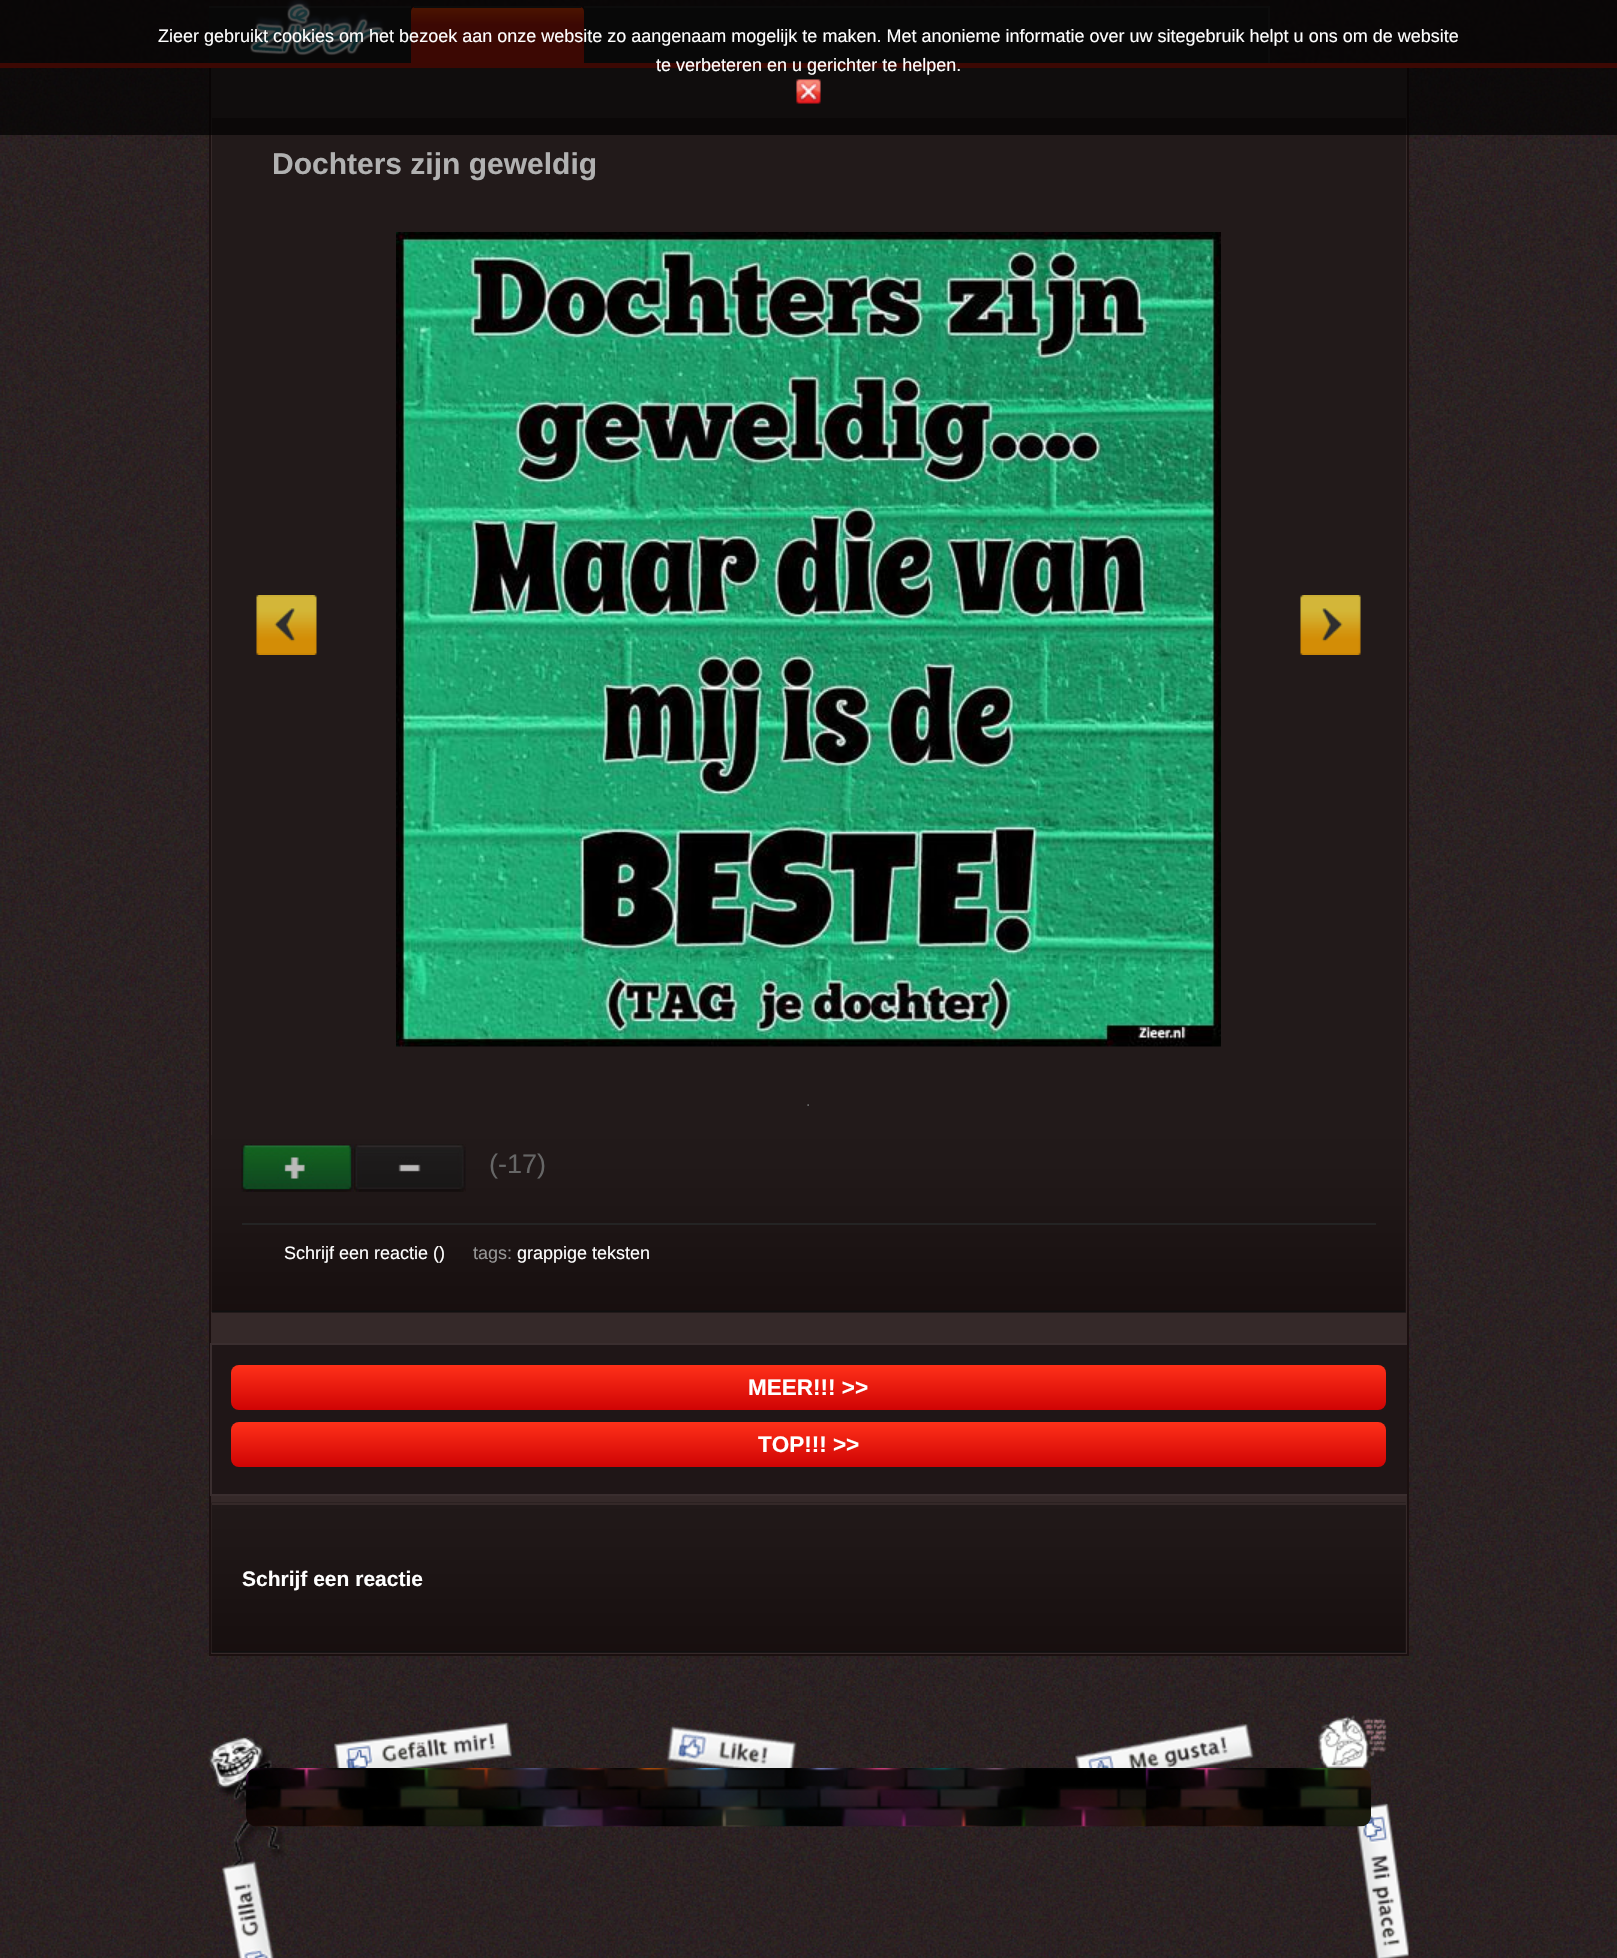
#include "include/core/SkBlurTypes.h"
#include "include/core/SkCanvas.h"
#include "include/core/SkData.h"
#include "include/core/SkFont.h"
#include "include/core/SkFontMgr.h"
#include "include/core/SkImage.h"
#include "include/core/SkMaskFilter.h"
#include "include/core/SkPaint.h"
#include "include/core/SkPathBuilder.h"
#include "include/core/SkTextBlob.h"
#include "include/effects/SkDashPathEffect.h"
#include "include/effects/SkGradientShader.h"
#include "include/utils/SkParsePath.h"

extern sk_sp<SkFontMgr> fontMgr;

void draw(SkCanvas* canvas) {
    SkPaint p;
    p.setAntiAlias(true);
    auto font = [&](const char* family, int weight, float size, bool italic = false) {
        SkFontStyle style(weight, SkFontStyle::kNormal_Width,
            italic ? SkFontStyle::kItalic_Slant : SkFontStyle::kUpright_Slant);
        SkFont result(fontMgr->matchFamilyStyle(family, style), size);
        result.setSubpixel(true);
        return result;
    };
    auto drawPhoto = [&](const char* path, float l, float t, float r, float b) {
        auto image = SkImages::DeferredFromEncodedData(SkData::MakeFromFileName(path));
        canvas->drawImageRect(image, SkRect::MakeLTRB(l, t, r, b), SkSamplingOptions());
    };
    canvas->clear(0xFFFFFFFF);
    drawPhoto("media/1.png", 0, 68, 1617, 1958);
    p.setColor(0xFF352929);
    canvas->drawRect(SkRect::MakeLTRB(211, 68, 1407, 1654), p);
    p.setStyle(SkPaint::kStroke_Style);
    p.setStrokeWidth(2);
    p.setColor(0xFF1B1010);
    canvas->drawRect(SkRect::MakeLTRB(210, -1, 1408, 1655), p);
    drawPhoto("media/2.png", 0, 0, 1617, 63);
    p.setStyle(SkPaint::kFill_Style);
    {
        const struct { float l, t, r, b; SkColor color; } items[] = {
            {0, 63, 1617, 68, 0xFFC91907},
            {1268, 6, 1270, 63, 0xFF262626},
            {209, 8, 411, 63, 0xFF191919},
            {209, 6, 411, 8, 0xFF262626},
        };
        for (auto [l, t, r, b, color] : items) {
            p.setColor(color);
            canvas->drawRect(SkRect::MakeLTRB(l, t, r, b), p);
        }
    }
    drawPhoto("media/3.png", 249, 0, 384, 56);
    canvas->save();
    canvas->clipPath(SkPathBuilder().moveTo(417, 6).lineTo(578, 6).cubicTo(581.5f, 6, 584, 8.5f, 584, 12).lineTo(584, 66).lineTo(411, 66).lineTo(411, 12).cubicTo(411, 8.5f, 413.5f, 6, 417, 6).close().detach(), true);
    {
        const SkColor colors[] = {0xFFFC4300, 0xFFC91907, 0xFFC91907};
        const float stops[] = {0, 0.29f, 0.99f};
        const SkPoint ends[] = {{497, -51}, {497, 7.5f}};
        p.setShader(SkGradientShader::MakeLinear(ends, colors, stops, 3, SkTileMode::kClamp));
        p.setAlpha(255);
    }
    canvas->drawRect(SkRect::MakeLTRB(411, 6, 584, 8), p);
    {
        const SkColor colors[] = {0xFFFC4300, 0xFFC91907, 0xFFC91907};
        const float stops[] = {0, 0.29f, 0.99f};
        const SkPoint ends[] = {{497, 7.5f}, {497, 66}};
        p.setShader(SkGradientShader::MakeLinear(ends, colors, stops, 3, SkTileMode::kClamp));
        p.setAlpha(255);
    }
    canvas->drawRect(SkRect::MakeLTRB(411, 8, 584, 63), p);
    canvas->restore();
    p.setShader(nullptr);
    {
        const struct { float l, t, r, b; SkColor color; } items[] = {
            {414, 6, 581, 8, 0xFF262626},
            {584, 8, 1268, 63, 0xFF191919},
            {584, 6, 1268, 8, 0xFF262626},
            {212, 118, 1406, 1313, 0xFF221A1A},
            {0, 0, 1617, 135, 0xB3000000},
        };
        for (auto [l, t, r, b, color] : items) {
            p.setColor(color);
            canvas->drawRect(SkRect::MakeLTRB(l, t, r, b), p);
        }
    }
    auto font1 = font("Liberation Sans", 400, 18);
    p.setColor(0xFFFFFFFF);
    canvas->drawString("Zieer gebruikt cookies om het bezoek aan onze website zo aangenaam mogelijk te maken. Met anonieme informatie over uw sitegebruik helpt u ons om de website", 158, 42, font1, p);
    canvas->drawString("te verbeteren en u gerichter te helpen.", 656, 71, font1, p);
    drawPhoto("media/4.png", 796, 79, 821, 104);
    drawPhoto("media/5.png", 211, 1135, 1406, 1312);
    auto font2 = font("Liberation Sans", 700, 30);
    p.setColor(0xFFB1B1B1);
    canvas->drawString("Dochters zijn geweldig", 272, 174, font2, p);
    drawPhoto("media/6.png", 256, 595, 317, 655);
    drawPhoto("media/7.png", 396, 232, 1221, 1047);
    drawPhoto("media/8.png", 1300, 595, 1361, 655);
    auto font3 = font("Liberation Sans", 400, 16);
    p.setColor(0xFF666666);
    canvas->drawString(".", 806, 1106, font3, p);
    drawPhoto("media/9.png", 241, 1144, 354, 1192);
    drawPhoto("media/10.png", 354, 1144, 466, 1192);
    auto font4 = font("Liberation Sans", 400, 27);
    canvas->drawString("(-17)", 489, 1173, font4, p);
    p.setColor(0xFF242424);
    canvas->drawRect(SkRect::MakeLTRB(242, 1223, 1376, 1225), p);
    p.setColor(0xFFFFFFFF);
    canvas->drawString("Schrijf een reactie ()", 284, 1259, font1, p);
    p.setColor(0xFF959595);
    canvas->drawString("tags:", 473, 1259, font1, p);
    p.setColor(0xFFFFFFFF);
    canvas->drawString("grappige teksten", 517, 1259, font1, p);
    p.setColor(0xFF1F1617);
    canvas->drawRect(SkRect::MakeLTRB(212, 1345, 1407, 1494), p);
    canvas->save();
    canvas->clipRect(SkRect::MakeLTRB(210, 0, 1407, 1655));
    p.setStyle(SkPaint::kStroke_Style);
    p.setColor(0xFF3A2E2F);
    canvas->drawRect(SkRect::MakeLTRB(211, 1344, 1421, 1495), p);
    canvas->restore();
    p.setStyle(SkPaint::kFill_Style);
    {
        const SkColor colors[] = {0xFFFF3019, 0xFFCF0404};
        const float stops[] = {0, 1};
        const SkPoint ends[] = {{809, 1365}, {809, 1410}};
        p.setShader(SkGradientShader::MakeLinear(ends, colors, stops, 2, SkTileMode::kClamp));
        p.setAlpha(255);
    }
    canvas->drawRoundRect(SkRect::MakeLTRB(231, 1365, 1386, 1410), 8, 8, p);
    auto font5 = font("Liberation Sans", 700, 22.5f);
    p.setShader(nullptr);
    p.setColor(0xFFFFFFFF);
    canvas->drawString("MEER!!! >>", 748, 1395, font5, p);
    {
        const SkColor colors[] = {0xFFFF3019, 0xFFCF0404};
        const float stops[] = {0, 1};
        const SkPoint ends[] = {{809, 1422}, {809, 1467}};
        p.setShader(SkGradientShader::MakeLinear(ends, colors, stops, 2, SkTileMode::kClamp));
        p.setAlpha(255);
    }
    canvas->drawRoundRect(SkRect::MakeLTRB(231, 1422, 1386, 1467), 8, 8, p);
    p.setShader(nullptr);
    p.setColor(0xFFFFFFFF);
    canvas->drawString("TOP!!! >>", 758, 1452, font5, p);
    p.setColor(0xFF221A1A);
    canvas->drawRect(SkRect::MakeLTRB(212, 1505, 1406, 1653), p);
    drawPhoto("media/11.png", 211, 1502, 1406, 1653);
    p.setColor(0xFF352929);
    canvas->drawRect(SkRect::MakeLTRB(212, 1503, 1406, 1505), p);
    auto font6 = font("Liberation Sans", 700, 21);
    p.setColor(0xFFFFFFFF);
    canvas->drawString("Schrijf een reactie", 242, 1586, font6, p);
    drawPhoto("media/12.png", 208, 1715, 1409, 1958);
    drawPhoto("media/13.png", 246, 1768, 1371, 1827);
}
